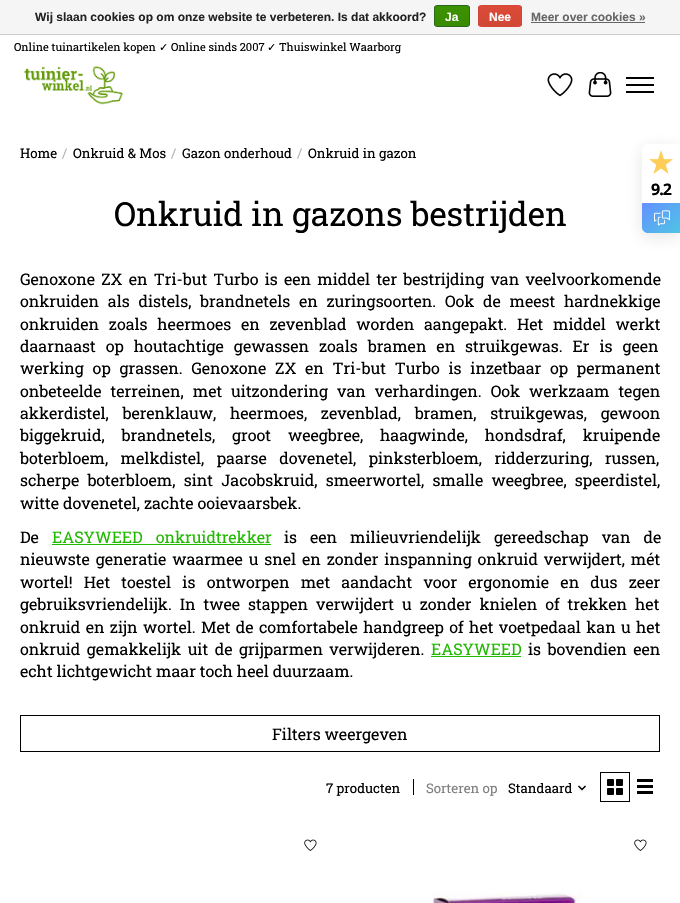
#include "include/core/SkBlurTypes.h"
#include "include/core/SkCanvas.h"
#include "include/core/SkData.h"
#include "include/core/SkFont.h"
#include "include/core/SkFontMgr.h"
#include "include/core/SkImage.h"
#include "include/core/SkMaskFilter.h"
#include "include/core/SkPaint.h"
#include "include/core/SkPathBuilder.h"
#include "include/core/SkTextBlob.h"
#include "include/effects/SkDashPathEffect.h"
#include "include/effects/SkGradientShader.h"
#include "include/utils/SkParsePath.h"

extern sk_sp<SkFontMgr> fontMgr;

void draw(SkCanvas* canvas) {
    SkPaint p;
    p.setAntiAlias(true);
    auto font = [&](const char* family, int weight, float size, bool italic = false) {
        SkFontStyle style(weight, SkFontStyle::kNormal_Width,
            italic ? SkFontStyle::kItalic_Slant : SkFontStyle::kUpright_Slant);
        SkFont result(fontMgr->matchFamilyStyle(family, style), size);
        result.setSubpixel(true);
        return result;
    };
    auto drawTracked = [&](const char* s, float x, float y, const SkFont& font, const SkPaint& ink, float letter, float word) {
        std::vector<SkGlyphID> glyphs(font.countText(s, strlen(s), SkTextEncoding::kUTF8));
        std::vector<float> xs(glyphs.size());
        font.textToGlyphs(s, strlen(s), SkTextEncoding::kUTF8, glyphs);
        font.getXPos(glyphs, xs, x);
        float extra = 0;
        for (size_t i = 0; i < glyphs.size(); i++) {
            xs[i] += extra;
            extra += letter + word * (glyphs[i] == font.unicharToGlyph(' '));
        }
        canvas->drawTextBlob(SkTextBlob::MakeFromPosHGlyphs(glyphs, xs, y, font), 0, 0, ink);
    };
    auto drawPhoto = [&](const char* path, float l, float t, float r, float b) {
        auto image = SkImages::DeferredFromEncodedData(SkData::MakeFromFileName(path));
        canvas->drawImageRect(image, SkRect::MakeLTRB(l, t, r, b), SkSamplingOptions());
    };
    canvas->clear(0xFFFFFFFF);
    p.setColor(0xFFF5F5F5);
    canvas->drawRect(SkRect::MakeLTRB(0, 0, 680, 34), p);
    p.setColor(0xFFCCCCCC);
    canvas->drawRect(SkRect::MakeLTRB(0, 34, 680, 35), p);
    auto font1 = font("Liberation Sans", 700, 12);
    p.setColor(0xFF222222);
    canvas->drawString("Wij slaan cookies op om onze website te verbeteren. Is dat akkoord?", 35, 21, font1, p);
    canvas->save();
    canvas->clipPath(SkPathBuilder().moveTo(437, 5).lineTo(467, 5).cubicTo(468.5f, 5, 470, 6.5f, 470, 8).lineTo(470, 24).cubicTo(470, 25.5f, 468.5f, 27, 467, 27).lineTo(437, 27).cubicTo(435.5f, 27, 434, 25.5f, 434, 24).lineTo(434, 8).cubicTo(434, 6.5f, 435.5f, 5, 437, 5).close().detach(), true);
    {
        const SkColor colors[] = {0xFF3C9300, 0xFF398A00};
        const float stops[] = {0, 1};
        const SkPoint ends[] = {{452, 6}, {452, 26}};
        p.setShader(SkGradientShader::MakeLinear(ends, colors, stops, 2, SkTileMode::kClamp));
        p.setAlpha(255);
    }
    canvas->drawRect(SkRect::MakeLTRB(434, 6, 470, 26), p);
    canvas->restore();
    p.setStyle(SkPaint::kStroke_Style);
    p.setStrokeWidth(1);
    p.setShader(nullptr);
    p.setColor(0xFF29691D);
    canvas->drawRoundRect(SkRect::MakeLTRB(434.5f, 5.5f, 469.5f, 26.5f), 2.5f, 2.5f, p);
    p.setStyle(SkPaint::kFill_Style);
    p.setColor(0xFFFFFFFF);
    canvas->drawString("Ja", 445, 21, font1, p);
    canvas->save();
    canvas->clipPath(SkPathBuilder().moveTo(481, 5).lineTo(519, 5).cubicTo(520.5f, 5, 522, 6.5f, 522, 8).lineTo(522, 24).cubicTo(522, 25.5f, 520.5f, 27, 519, 27).lineTo(481, 27).cubicTo(479.5f, 27, 478, 25.5f, 478, 24).lineTo(478, 8).cubicTo(478, 6.5f, 479.5f, 5, 481, 5).close().detach(), true);
    {
        const SkColor colors[] = {0xFFDC4A38, 0xFFD14836};
        const float stops[] = {0, 1};
        const SkPoint ends[] = {{500, 6}, {500, 26}};
        p.setShader(SkGradientShader::MakeLinear(ends, colors, stops, 2, SkTileMode::kClamp));
        p.setAlpha(255);
    }
    canvas->drawRect(SkRect::MakeLTRB(478, 6, 522, 26), p);
    canvas->restore();
    p.setStyle(SkPaint::kStroke_Style);
    p.setShader(nullptr);
    p.setColor(0xFFD14836);
    canvas->drawRoundRect(SkRect::MakeLTRB(478.5f, 5.5f, 521.5f, 26.5f), 2.5f, 2.5f, p);
    p.setStyle(SkPaint::kFill_Style);
    p.setColor(0xFFFFFFFF);
    canvas->drawString("Nee", 489, 21, font1, p);
    p.setColor(0xFF666666);
    canvas->drawString("Meer over cookies »", 531, 21, font1, p);
    canvas->drawRect(SkRect::MakeLTRB(531, 22, 645, 23), p);
    auto font2 = font("Roboto Slab", 400, 11.1f);
    p.setColor(0xFF000000);
    canvas->drawString("Online tuinartikelen kopen", 14, 51, font2, p);
    auto font3 = font("DejaVu Sans", 400, 11.1f);
    canvas->drawString("✓", 159, 51, font3, p);
    canvas->drawString("Online sinds 2007", 171, 51, font2, p);
    canvas->drawString("✓", 267, 51, font3, p);
    canvas->drawString("Thuiswinkel Waarborg", 279, 51, font2, p);
    drawPhoto("media/1.png", 24, 66, 124, 105);
    drawPhoto("media/2.png", 547, 73, 573, 97);
    drawPhoto("media/3.png", 588, 72, 612, 97);
    {
        const struct { float l, t, r, b; SkColor color; } items[] = {
            {626, 84, 654, 86, 0xFF000000},
            {626, 77, 654, 79, 0xFF000000},
            {626, 91, 654, 93, 0xFF000000},
        };
        for (auto [l, t, r, b, color] : items) {
            p.setColor(color);
            canvas->drawRect(SkRect::MakeLTRB(l, t, r, b), p);
        }
    }
    auto font4 = font("Roboto Slab", 400, 13.25f);
    canvas->drawString("Home", 20, 158, font4, p);
    p.setColor(0xFFB3B3B3);
    canvas->drawString("/", 62, 158, font4, p);
    p.setColor(0xFF000000);
    canvas->drawString("Onkruid & Mos", 73, 158, font4, p);
    p.setColor(0xFFB3B3B3);
    canvas->drawString("/", 171, 158, font4, p);
    p.setColor(0xFF000000);
    canvas->drawString("Gazon onderhoud", 182, 158, font4, p);
    p.setColor(0xFFB3B3B3);
    canvas->drawString("/", 297, 158, font4, p);
    p.setColor(0xFF000000);
    canvas->drawString("Onkruid in gazon", 308, 158, font4, p);
    auto font5 = font("Roboto Slab", 400, 33.25f);
    canvas->drawString("Onkruid in gazons bestrijden", 114, 226, font5, p);
    auto font6 = font("Roboto Slab", 400, 16);
    drawTracked("Genoxone ZX en Tri-but Turbo is een middel ter bestrijding van veelvoorkomende", 20, 285, font6, p, 0, 2.25f);
    drawTracked("onkruiden als distels, brandnetels en zuringsoorten. Ook de meest hardnekkige", 20, 307, font6, p, 0, 4.75f);
    drawTracked("onkruiden zoals heermoes en zevenblad worden aangepakt. Het middel werkt", 20, 330, font6, p, 0, 5.75f);
    drawTracked("daarnaast op houtachtige gewassen zoals bramen en struikgewas. Er is geen", 20, 352, font6, p, 0, 6);
    drawTracked("werking op grassen. Genoxone ZX en Tri-but Turbo is inzetbaar op permanent", 20, 374, font6, p, 0, 4.75f);
    drawTracked("onbeteelde terreinen, met uitzondering van verhardingen. Ook werkzaam tegen", 20, 397, font6, p, 0, 5);
    drawTracked("akkerdistel, berenklauw, heermoes, zevenblad, bramen, struikgewas, gewoon", 20, 419, font6, p, 0, 9.75f);
    drawTracked("biggekruid, brandnetels, groot weegbree, haagwinde, hondsdraf, kruipende", 20, 441, font6, p, 0, 13);
    drawTracked("boterbloem, melkdistel, paarse dovenetel, pinksterbloem, ridderzuring, russen,", 20, 464, font6, p, 0, 8.5f);
    drawTracked("scherpe boterbloem, sint Jacobskruid, smeerwortel, smalle weegbree, speerdistel,", 20, 486, font6, p, 0, 4.25f);
    canvas->drawString("witte dovenetel, zachte ooievaarsbek.", 20, 509, font6, p);
    canvas->drawString("De", 20, 543, font6, p);
    p.setColor(0xFF1FB900);
    drawTracked("EASYWEED onkruidtrekker", 52, 543, font6, p, 0, 9);
    canvas->drawRect(SkRect::MakeLTRB(52, 544, 271, 545), p);
    p.setColor(0xFF000000);
    drawTracked("is een milieuvriendelijk gereedschap van de", 284, 543, font6, p, 0, 9);
    drawTracked("nieuwste generatie waarmee u snel en zonder inspanning onkruid verwijdert, mét", 20, 565, font6, p, 0, 1.9f);
    drawTracked("wortel! Het toestel is ontworpen met aandacht voor ergonomie en dus zeer", 20, 588, font6, p, 0, 7.25f);
    drawTracked("gebruiksvriendelijk. In twee stappen verwijdert u zonder knielen of trekken het", 20, 610, font6, p, 0, 4);
    drawTracked("onkruid en zijn wortel. Met de comfortabele handgreep of het voetpedaal kan u het", 20, 633, font6, p, 0, 1.4f);
    drawTracked("onkruid gemakkelijk uit de grijparmen verwijderen.", 20, 655, font6, p, 0, 2.5f);
    p.setColor(0xFF1FB900);
    canvas->drawString("EASYWEED", 431, 655, font6, p);
    canvas->drawRect(SkRect::MakeLTRB(431, 656, 521, 657), p);
    p.setColor(0xFF000000);
    drawTracked("is bovendien een", 528, 655, font6, p, 0, 2.5f);
    canvas->drawString("echt lichtgewicht maar toch heel duurzaam.", 20, 677, font6, p);
    p.setColor(0x1F1E1E1E);
    p.setMaskFilter(SkMaskFilter::MakeBlur(kNormal_SkBlurStyle, 8));
    canvas->drawRoundRect(SkRect::MakeLTRB(642, 148, 680, 237), 6, 6, p);
    p.setMaskFilter(nullptr);
    p.setColor(0xFFFFFFFF);
    canvas->drawPath(SkPathBuilder().moveTo(648, 144).lineTo(680, 144).lineTo(680, 233).lineTo(648, 233).cubicTo(644.5f, 233, 642, 230.5f, 642, 227).lineTo(642, 150).cubicTo(642, 146.5f, 644.5f, 144, 648, 144).close().detach(), p);
    drawPhoto("media/4.png", 649, 150, 673, 174);
    auto font7 = font("Open Sans", 700, 16);
    p.setColor(0xFF000000);
    drawTracked("9.2", 651, 195, font7, p, -1, 0);
    {
        const SkColor colors[] = {0xFF6590FF, 0xFF4EC5E4};
        const float stops[] = {0, 1};
        const SkPoint ends[] = {{645, 200}, {677, 236}};
        p.setShader(SkGradientShader::MakeLinear(ends, colors, stops, 2, SkTileMode::kClamp));
        p.setAlpha(255);
    }
    canvas->drawPath(SkPathBuilder().moveTo(642, 203).lineTo(680, 203).lineTo(680, 233).lineTo(648, 233).cubicTo(644.5f, 233, 642, 230.5f, 642, 227).close().detach(), p);
    drawPhoto("media/5.png", 654, 210, 670, 226);
    p.setStyle(SkPaint::kStroke_Style);
    p.setShader(nullptr);
    p.setColor(0xFF000000);
    canvas->drawRect(SkRect::MakeLTRB(20.5f, 715.5f, 659.5f, 751.5f), p);
    p.setStyle(SkPaint::kFill_Style);
    canvas->drawString("Filters weergeven", 272, 740, font6, p);
    canvas->drawString("7 producten", 326, 793, font4, p);
    canvas->drawRect(SkRect::MakeLTRB(413, 779, 414, 795), p);
    p.setColor(0xFF808080);
    canvas->drawString("Sorteren op", 426, 793, font4, p);
    p.setColor(0xFF000000);
    canvas->drawString("Standaard", 508, 793, font4, p);
    drawPhoto("media/6.png", 578, 785, 586, 791);
    p.setStyle(SkPaint::kStroke_Style);
    canvas->drawRect(SkRect::MakeLTRB(600.5f, 772.5f, 629.5f, 801.5f), p);
    drawPhoto("media/7.png", 607, 779, 623, 795);
    p.setStyle(SkPaint::kFill_Style);
    {
        const struct { float l, t, r, b; SkColor color; } items[] = {
            {637, 779, 653, 782, 0xFF000000},
            {637, 785, 653, 788, 0xFF000000},
            {637, 791, 653, 794, 0xFF000000},
        };
        for (auto [l, t, r, b, color] : items) {
            p.setColor(color);
            canvas->drawRect(SkRect::MakeLTRB(l, t, r, b), p);
        }
    }
    drawPhoto("media/8.png", 304, 839, 317, 851);
    drawPhoto("media/9.png", 350, 826, 660, 903);
    drawPhoto("media/8.png", 634, 839, 647, 851);
}
